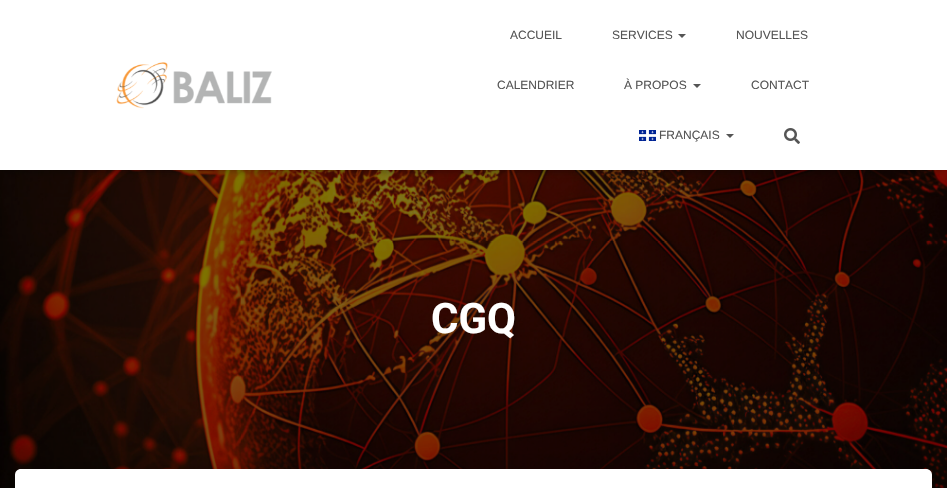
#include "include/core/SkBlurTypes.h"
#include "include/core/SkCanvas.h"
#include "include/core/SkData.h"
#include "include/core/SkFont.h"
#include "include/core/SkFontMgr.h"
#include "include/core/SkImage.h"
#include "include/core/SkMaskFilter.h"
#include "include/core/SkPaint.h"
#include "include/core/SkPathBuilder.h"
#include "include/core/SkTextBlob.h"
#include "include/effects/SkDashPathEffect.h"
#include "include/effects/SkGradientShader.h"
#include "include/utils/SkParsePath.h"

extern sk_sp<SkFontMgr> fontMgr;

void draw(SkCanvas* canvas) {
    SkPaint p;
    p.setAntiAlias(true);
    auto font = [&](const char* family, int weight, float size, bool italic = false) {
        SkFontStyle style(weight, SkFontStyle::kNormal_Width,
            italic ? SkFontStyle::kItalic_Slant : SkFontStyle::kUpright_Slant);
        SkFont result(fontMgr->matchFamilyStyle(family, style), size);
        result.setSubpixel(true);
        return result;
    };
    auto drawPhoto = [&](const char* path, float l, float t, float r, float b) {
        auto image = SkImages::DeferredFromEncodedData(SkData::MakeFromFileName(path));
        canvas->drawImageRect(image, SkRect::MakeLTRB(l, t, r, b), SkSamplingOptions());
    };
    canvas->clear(0xFFFFFFFF);
    drawPhoto("media/4.png", 0, 170, 947, 488);
    p.setColor(0x1A000000);
    p.setMaskFilter(SkMaskFilter::MakeBlur(kNormal_SkBlurStyle, 2.5f));
    canvas->drawRect(SkRect::MakeLTRB(2, 6, 945, 172), p);
    p.setMaskFilter(nullptr);
    p.setColor(0x1F000000);
    p.setMaskFilter(SkMaskFilter::MakeBlur(kNormal_SkBlurStyle, 5));
    canvas->drawRect(SkRect::MakeLTRB(0, 1, 947, 171), p);
    p.setMaskFilter(nullptr);
    p.setColor(0x6B000000);
    p.setMaskFilter(SkMaskFilter::MakeBlur(kNormal_SkBlurStyle, 5));
    canvas->drawRect(SkRect::MakeLTRB(6, 7, 941, 165), p);
    p.setMaskFilter(nullptr);
    p.setColor(0xFFFFFFFF);
    canvas->drawRect(SkRect::MakeLTRB(0, 0, 947, 170), p);
    drawPhoto("media/1.png", 116, 62, 272, 109);
    auto font1 = font("Liberation Sans", 400, 12);
    p.setColor(0xFF555555);
    canvas->drawString("ACCUEIL", 510, 39, font1, p);
    canvas->drawString("SERVICES", 612, 39, font1, p);
    canvas->drawPath(SkPathBuilder().moveTo(678, 34).lineTo(686, 34).lineTo(682, 38).close().detach(), p);
    {
        const struct { const char* s; float x, y; } items[] = {
            {"NOUVELLES", 736, 39},
            {"CALENDRIER", 497, 89},
            {"À PROPOS", 624, 89},
        };
        for (auto [s, x, y] : items) {
            canvas->drawString(s, x, y, font1, p);
        }
    }
    canvas->drawPath(SkPathBuilder().moveTo(693, 84).lineTo(701, 84).lineTo(697, 88).close().detach(), p);
    canvas->drawString("CONTACT", 751, 89, font1, p);
    drawPhoto("media/2.png", 639, 130, 656, 141);
    canvas->drawString("FRANÇAIS", 659, 139, font1, p);
    canvas->drawPath(SkPathBuilder().moveTo(726, 134).lineTo(734, 134).lineTo(730, 138).close().detach(), p);
    drawPhoto("media/3.png", 784, 128, 800, 144);
    auto font2 = font("Roboto", 700, 42);
    p.setColor(0xFFFFFFFF);
    canvas->drawString("CGQ", 431, 333, font2, p);
    p.setColor(0x1F000000);
    p.setMaskFilter(SkMaskFilter::MakeBlur(kNormal_SkBlurStyle, 15));
    canvas->drawRoundRect(SkRect::MakeLTRB(10, 470, 937, 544), 11, 11, p);
    p.setMaskFilter(nullptr);
    p.setColor(0x24000000);
    p.setMaskFilter(SkMaskFilter::MakeBlur(kNormal_SkBlurStyle, 12));
    canvas->drawRoundRect(SkRect::MakeLTRB(13, 483, 934, 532), 8, 8, p);
    p.setMaskFilter(nullptr);
    p.setColor(0xFFFFFFFF);
    canvas->drawPath(SkPathBuilder().moveTo(21, 469).lineTo(926, 469).cubicTo(929.5f, 469, 932, 471.5f, 932, 475).lineTo(932, 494).lineTo(15, 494).lineTo(15, 475).cubicTo(15, 471.5f, 17.5f, 469, 21, 469).close().detach(), p);
}
